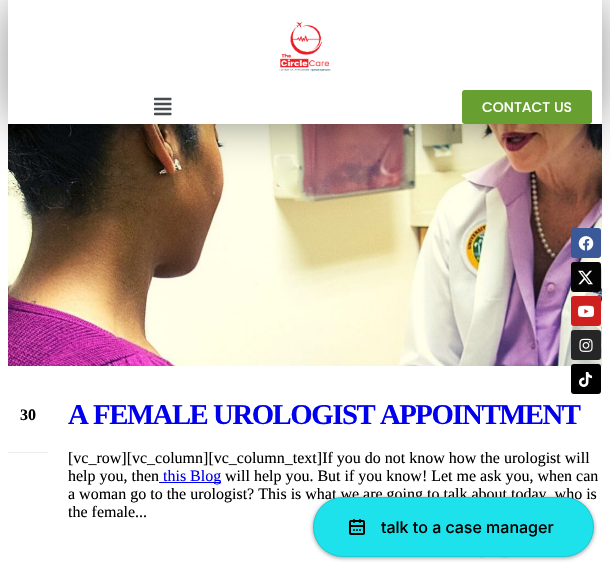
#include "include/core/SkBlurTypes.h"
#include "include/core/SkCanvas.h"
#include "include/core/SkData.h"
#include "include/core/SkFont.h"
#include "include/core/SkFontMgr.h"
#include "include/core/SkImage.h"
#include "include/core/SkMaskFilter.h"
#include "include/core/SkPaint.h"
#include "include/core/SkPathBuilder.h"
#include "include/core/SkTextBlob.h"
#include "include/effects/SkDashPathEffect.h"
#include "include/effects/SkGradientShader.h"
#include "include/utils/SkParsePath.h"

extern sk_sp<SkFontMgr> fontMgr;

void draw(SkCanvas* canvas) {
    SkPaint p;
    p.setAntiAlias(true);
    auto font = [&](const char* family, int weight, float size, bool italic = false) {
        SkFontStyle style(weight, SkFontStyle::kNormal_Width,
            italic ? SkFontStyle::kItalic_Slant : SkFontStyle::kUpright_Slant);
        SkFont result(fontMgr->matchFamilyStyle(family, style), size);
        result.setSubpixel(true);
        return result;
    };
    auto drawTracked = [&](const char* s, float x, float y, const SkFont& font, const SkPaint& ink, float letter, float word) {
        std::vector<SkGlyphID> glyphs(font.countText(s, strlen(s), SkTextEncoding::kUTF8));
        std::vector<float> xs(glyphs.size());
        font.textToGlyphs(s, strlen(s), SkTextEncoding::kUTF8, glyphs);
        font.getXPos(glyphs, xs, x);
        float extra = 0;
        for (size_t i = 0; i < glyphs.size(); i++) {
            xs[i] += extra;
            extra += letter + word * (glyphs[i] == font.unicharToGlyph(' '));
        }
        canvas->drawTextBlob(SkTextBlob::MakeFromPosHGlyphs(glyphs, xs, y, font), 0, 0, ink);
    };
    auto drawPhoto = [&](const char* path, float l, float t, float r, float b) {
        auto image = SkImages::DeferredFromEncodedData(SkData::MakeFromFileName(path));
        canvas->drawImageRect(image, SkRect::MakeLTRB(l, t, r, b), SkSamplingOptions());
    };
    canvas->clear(0xFFFFFFFF);
    drawPhoto("media/8.png", 8, 124, 602, 366);
    p.setColor(0x80000000);
    p.setMaskFilter(SkMaskFilter::MakeBlur(kNormal_SkBlurStyle, 24));
    canvas->drawRect(SkRect::MakeLTRB(11, 3, 599, 121), p);
    p.setMaskFilter(nullptr);
    p.setColor(0xFFFFFFFF);
    canvas->drawRect(SkRect::MakeLTRB(8, 0, 602, 124), p);
    drawPhoto("media/1.png", 279, 22, 331, 72);
    drawPhoto("media/2.png", 154, 97, 172, 116);
    p.setColor(0xFF67A030);
    canvas->drawRoundRect(SkRect::MakeLTRB(462, 90, 592, 124), 3, 3, p);
    auto font1 = font("Poppins", 500, 14);
    p.setColor(0xFFFFFFFF);
    canvas->drawString("CONTACT US", 482, 112, font1, p);
    p.setColor(0xFF3B5998);
    canvas->drawRoundRect(SkRect::MakeLTRB(571, 228, 601, 258), 3, 3, p);
    drawPhoto("media/3.png", 578, 236, 594, 251);
    p.setColor(0xFF040404);
    canvas->drawRoundRect(SkRect::MakeLTRB(571, 262, 601, 292), 3, 3, p);
    drawPhoto("media/4.png", 578, 270, 593, 285);
    p.setColor(0xFFCD201F);
    canvas->drawRoundRect(SkRect::MakeLTRB(571, 296, 601, 326), 3, 3, p);
    drawPhoto("media/5.png", 578, 305, 594, 317);
    p.setColor(0xFF262626);
    canvas->drawRoundRect(SkRect::MakeLTRB(571, 330, 601, 360), 3, 3, p);
    drawPhoto("media/6.png", 579, 338, 593, 352);
    p.setColor(0xFF000000);
    canvas->drawRoundRect(SkRect::MakeLTRB(571, 364, 601, 394), 3, 3, p);
    drawPhoto("media/7.png", 579, 372, 593, 387);
    auto font2 = font("Liberation Serif", 700, 16);
    canvas->drawString("30", 20, 420, font2, p);
    p.setColor(0xFFEDEDED);
    canvas->drawRect(SkRect::MakeLTRB(8, 452, 48, 453), p);
    auto font3 = font("Liberation Serif", 700, 28.75f);
    p.setColor(0xFF0000EE);
    drawTracked("A FEMALE UROLOGIST APPOINTMENT", 68, 424, font3, p, -1.45f, 0);
    auto font4 = font("Liberation Serif", 400, 16);
    p.setColor(0xFF000000);
    canvas->drawString("[vc_row][vc_column][vc_column_text]If you do not know how the urologist will", 68, 463, font4, p);
    canvas->drawString("help you, then", 68, 481, font4, p);
    p.setColor(0xFF0000EE);
    canvas->drawRect(SkRect::MakeLTRB(159, 482, 221, 483), p);
    canvas->drawString("this Blog", 163, 481, font4, p);
    p.setColor(0xFF000000);
    {
        const struct { const char* s; float x, y; } items[] = {
            {"will help you. But if you know! Let me ask you, when can", 225, 481},
            {"a woman go to the urologist? This is what we are going to talk about today. who is", 68, 499},
            {"the female...", 68, 517},
        };
        for (auto [s, x, y] : items) {
            canvas->drawString(s, x, y, font4, p);
        }
    }
    drawPhoto("media/10.png", 480, 557, 510, 558);
    p.setColor(0x66000000);
    p.setMaskFilter(SkMaskFilter::MakeBlur(kNormal_SkBlurStyle, 2));
    canvas->drawRoundRect(SkRect::MakeLTRB(313, 498, 594, 558), 30, 30, p);
    p.setMaskFilter(nullptr);
    p.setColor(0xFF1EE2EB);
    canvas->drawRoundRect(SkRect::MakeLTRB(313, 497, 594, 557), 30, 30, p);
    p.setStyle(SkPaint::kStroke_Style);
    p.setStrokeWidth(1);
    p.setColor(0x1A000000);
    canvas->drawRoundRect(SkRect::MakeLTRB(313.5f, 497.5f, 593.5f, 556.5f), 29.5f, 29.5f, p);
    drawPhoto("media/9.png", 349, 519, 365, 535);
    auto font5 = font("Inter", 500, 16);
    p.setStyle(SkPaint::kFill_Style);
    p.setColor(0xFF000000);
    canvas->drawString("talk to a case manager", 381, 533, font5, p);
}
